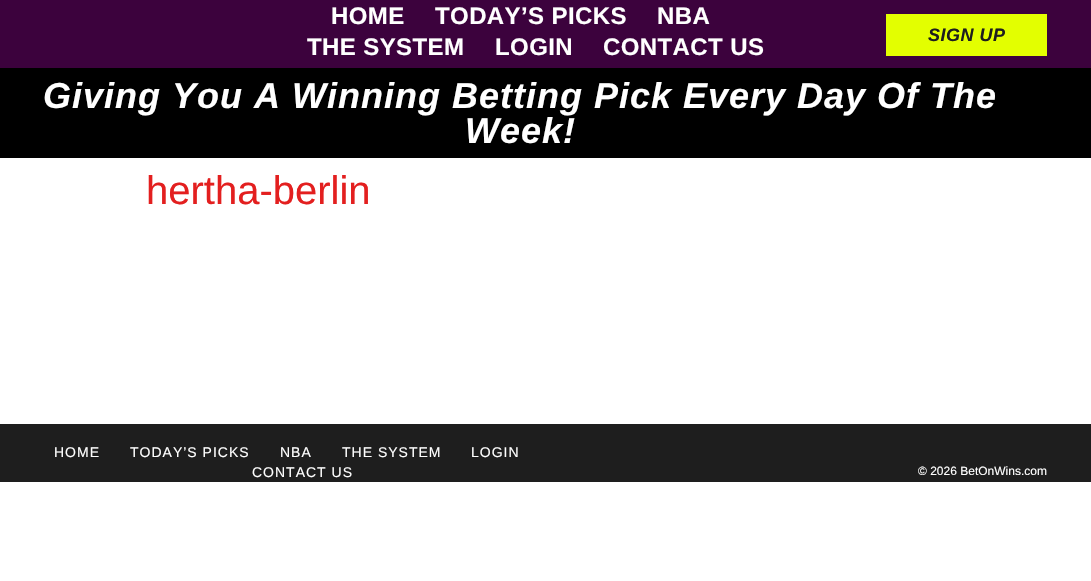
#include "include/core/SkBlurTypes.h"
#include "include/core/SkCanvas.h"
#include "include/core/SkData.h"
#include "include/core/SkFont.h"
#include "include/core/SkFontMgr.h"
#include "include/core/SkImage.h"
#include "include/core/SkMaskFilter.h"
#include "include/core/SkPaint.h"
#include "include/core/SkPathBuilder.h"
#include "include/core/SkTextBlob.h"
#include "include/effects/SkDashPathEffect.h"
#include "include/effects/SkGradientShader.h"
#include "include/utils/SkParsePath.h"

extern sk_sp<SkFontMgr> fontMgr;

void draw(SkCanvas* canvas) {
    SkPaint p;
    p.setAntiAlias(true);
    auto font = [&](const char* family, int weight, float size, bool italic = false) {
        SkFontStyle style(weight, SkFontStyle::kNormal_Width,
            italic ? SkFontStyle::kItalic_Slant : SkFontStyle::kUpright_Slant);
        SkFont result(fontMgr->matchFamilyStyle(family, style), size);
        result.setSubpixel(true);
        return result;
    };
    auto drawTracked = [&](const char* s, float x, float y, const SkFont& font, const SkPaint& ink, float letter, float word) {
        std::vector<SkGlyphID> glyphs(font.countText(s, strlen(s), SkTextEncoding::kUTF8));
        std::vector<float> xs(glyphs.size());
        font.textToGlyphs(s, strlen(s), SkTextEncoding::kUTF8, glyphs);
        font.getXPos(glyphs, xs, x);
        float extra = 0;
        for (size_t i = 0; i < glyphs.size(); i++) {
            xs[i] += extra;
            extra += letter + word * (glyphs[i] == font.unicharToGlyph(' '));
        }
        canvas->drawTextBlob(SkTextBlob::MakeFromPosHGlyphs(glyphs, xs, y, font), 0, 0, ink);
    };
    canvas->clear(0xFFFFFFFF);
    p.setColor(0xFF3C023D);
    canvas->drawRect(SkRect::MakeLTRB(0, 0, 1091, 68), p);
    auto font1 = font("Liberation Sans", 700, 24);
    p.setColor(0xFFFFFFFF);
    {
        const struct { const char* s; float x, y; } items[] = {
            {"HOME", 331, 24},
            {"TODAY’S PICKS", 435, 24},
            {"NBA", 657, 24},
            {"THE SYSTEM", 307, 55},
            {"LOGIN", 495, 55},
            {"CONTACT US", 603, 55},
        };
        for (auto [s, x, y] : items) {
            drawTracked(s, x, y, font1, p, 0.4f, 0);
        }
    }
    p.setColor(0xFFE3FF00);
    canvas->drawRect(SkRect::MakeLTRB(886, 14, 1047, 56), p);
    auto font2 = font("Liberation Sans", 700, 18, true);
    p.setColor(0xFF1E1E1E);
    drawTracked("SIGN UP", 928, 41, font2, p, 0.5f, 0);
    p.setColor(0xFF000000);
    canvas->drawRect(SkRect::MakeLTRB(0, 68, 1091, 158), p);
    auto font3 = font("Liberation Sans", 700, 36, true);
    p.setColor(0xFFFFFFFF);
    drawTracked("Giving You A Winning Betting Pick Every Day Of The", 43, 108, font3, p, 1, 0);
    drawTracked("Week!", 465, 143, font3, p, 1, 0);
    auto font4 = font("Liberation Sans", 400, 40);
    p.setColor(0xFFE31F1F);
    canvas->drawString("hertha-berlin", 146, 204, font4, p);
    p.setColor(0xFF1E1E1E);
    canvas->drawRect(SkRect::MakeLTRB(0, 424, 1091, 482), p);
    auto font5 = font("Liberation Sans", 400, 14);
    p.setColor(0xFFFFFFFF);
    {
        const struct { const char* s; float x, y; } items[] = {
            {"HOME", 54, 457},
            {"TODAY’S PICKS", 130, 457},
            {"NBA", 280, 457},
            {"THE SYSTEM", 342, 457},
            {"LOGIN", 471, 457},
            {"CONTACT US", 252, 477},
        };
        for (auto [s, x, y] : items) {
            drawTracked(s, x, y, font5, p, 1, 0);
        }
    }
    auto font6 = font("Liberation Sans", 400, 12);
    canvas->drawString("© 2026 BetOnWins.com", 918, 475, font6, p);
}
